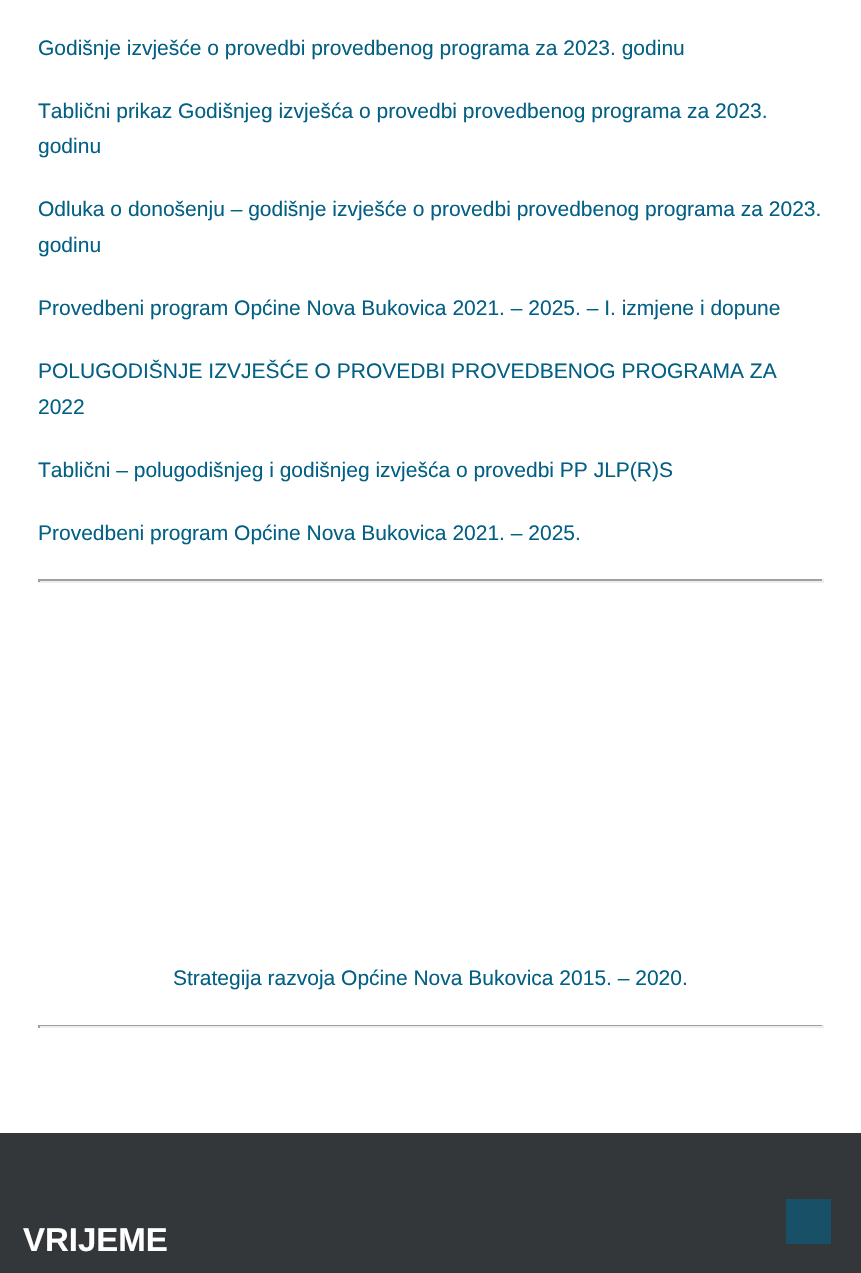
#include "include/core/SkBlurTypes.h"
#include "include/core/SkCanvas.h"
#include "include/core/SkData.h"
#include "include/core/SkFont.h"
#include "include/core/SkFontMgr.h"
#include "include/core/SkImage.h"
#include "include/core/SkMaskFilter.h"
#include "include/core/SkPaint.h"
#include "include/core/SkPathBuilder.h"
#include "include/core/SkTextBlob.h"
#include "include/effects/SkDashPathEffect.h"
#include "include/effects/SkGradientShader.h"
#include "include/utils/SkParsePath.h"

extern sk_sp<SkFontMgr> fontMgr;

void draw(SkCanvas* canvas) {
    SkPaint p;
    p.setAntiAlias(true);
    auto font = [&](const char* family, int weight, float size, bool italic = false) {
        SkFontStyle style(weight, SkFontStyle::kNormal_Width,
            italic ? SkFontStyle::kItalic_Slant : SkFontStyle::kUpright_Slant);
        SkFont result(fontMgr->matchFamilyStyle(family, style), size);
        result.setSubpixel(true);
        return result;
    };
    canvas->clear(0xFFFFFFFF);
    auto font1 = font("Liberation Sans", 400, 21);
    p.setColor(0xFF036085);
    {
        const struct { const char* s; float x, y; } items[] = {
            {"Godišnje izvješće o provedbi provedbenog programa za 2023. godinu", 38, 55},
            {"Tablični prikaz Godišnjeg izvješća o provedbi provedbenog programa za 2023.", 38, 118},
            {"godinu", 38, 153},
            {"Odluka o donošenju – godišnje izvješće o provedbi provedbenog programa za 2023.", 38, 216},
            {"godinu", 38, 252},
            {"Provedbeni program Općine Nova Bukovica 2021. – 2025. – I. izmjene i dopune", 38, 315},
            {"POLUGODIŠNJE IZVJEŠĆE O PROVEDBI PROVEDBENOG PROGRAMA ZA", 38, 378},
            {"2022", 38, 414},
            {"Tablični – polugodišnjeg i godišnjeg izvješća o provedbi PP JLP(R)S", 38, 477},
            {"Provedbeni program Općine Nova Bukovica 2021. – 2025.", 38, 540},
        };
        for (auto [s, x, y] : items) {
            canvas->drawString(s, x, y, font1, p);
        }
    }
    {
        const struct { float l, t, r, b; SkColor color; } items[] = {
            {38, 579, 824, 581, 0xFF9F9F9F},
            {822, 579, 824, 582, 0xFFEEEEEE},
            {38, 581, 824, 583, 0xFFEEEEEE},
            {38, 579, 40, 582, 0xFF9F9F9F},
        };
        for (auto [l, t, r, b, color] : items) {
            p.setColor(color);
            canvas->drawRect(SkRect::MakeLTRB(l, t, r, b), p);
        }
    }
    p.setColor(0xFF036085);
    canvas->drawString("Strategija razvoja Općine Nova Bukovica 2015. – 2020.", 173, 985, font1, p);
    {
        const struct { float l, t, r, b; SkColor color; } items[] = {
            {38, 1025, 824, 1026, 0xFF9F9F9F},
            {822, 1025, 824, 1028, 0xFFEEEEEE},
            {38, 1026, 824, 1028, 0xFFEEEEEE},
            {38, 1025, 40, 1028, 0xFF9F9F9F},
            {0, 1133, 861, 1273, 0xFF34373A},
        };
        for (auto [l, t, r, b, color] : items) {
            p.setColor(color);
            canvas->drawRect(SkRect::MakeLTRB(l, t, r, b), p);
        }
    }
    auto font2 = font("Liberation Sans", 700, 33);
    p.setColor(0xFFFFFFFF);
    canvas->drawString("VRIJEME", 23, 1251, font2, p);
    p.setColor(0xFF175067);
    canvas->drawRect(SkRect::MakeLTRB(786, 1199, 831, 1244), p);
}
